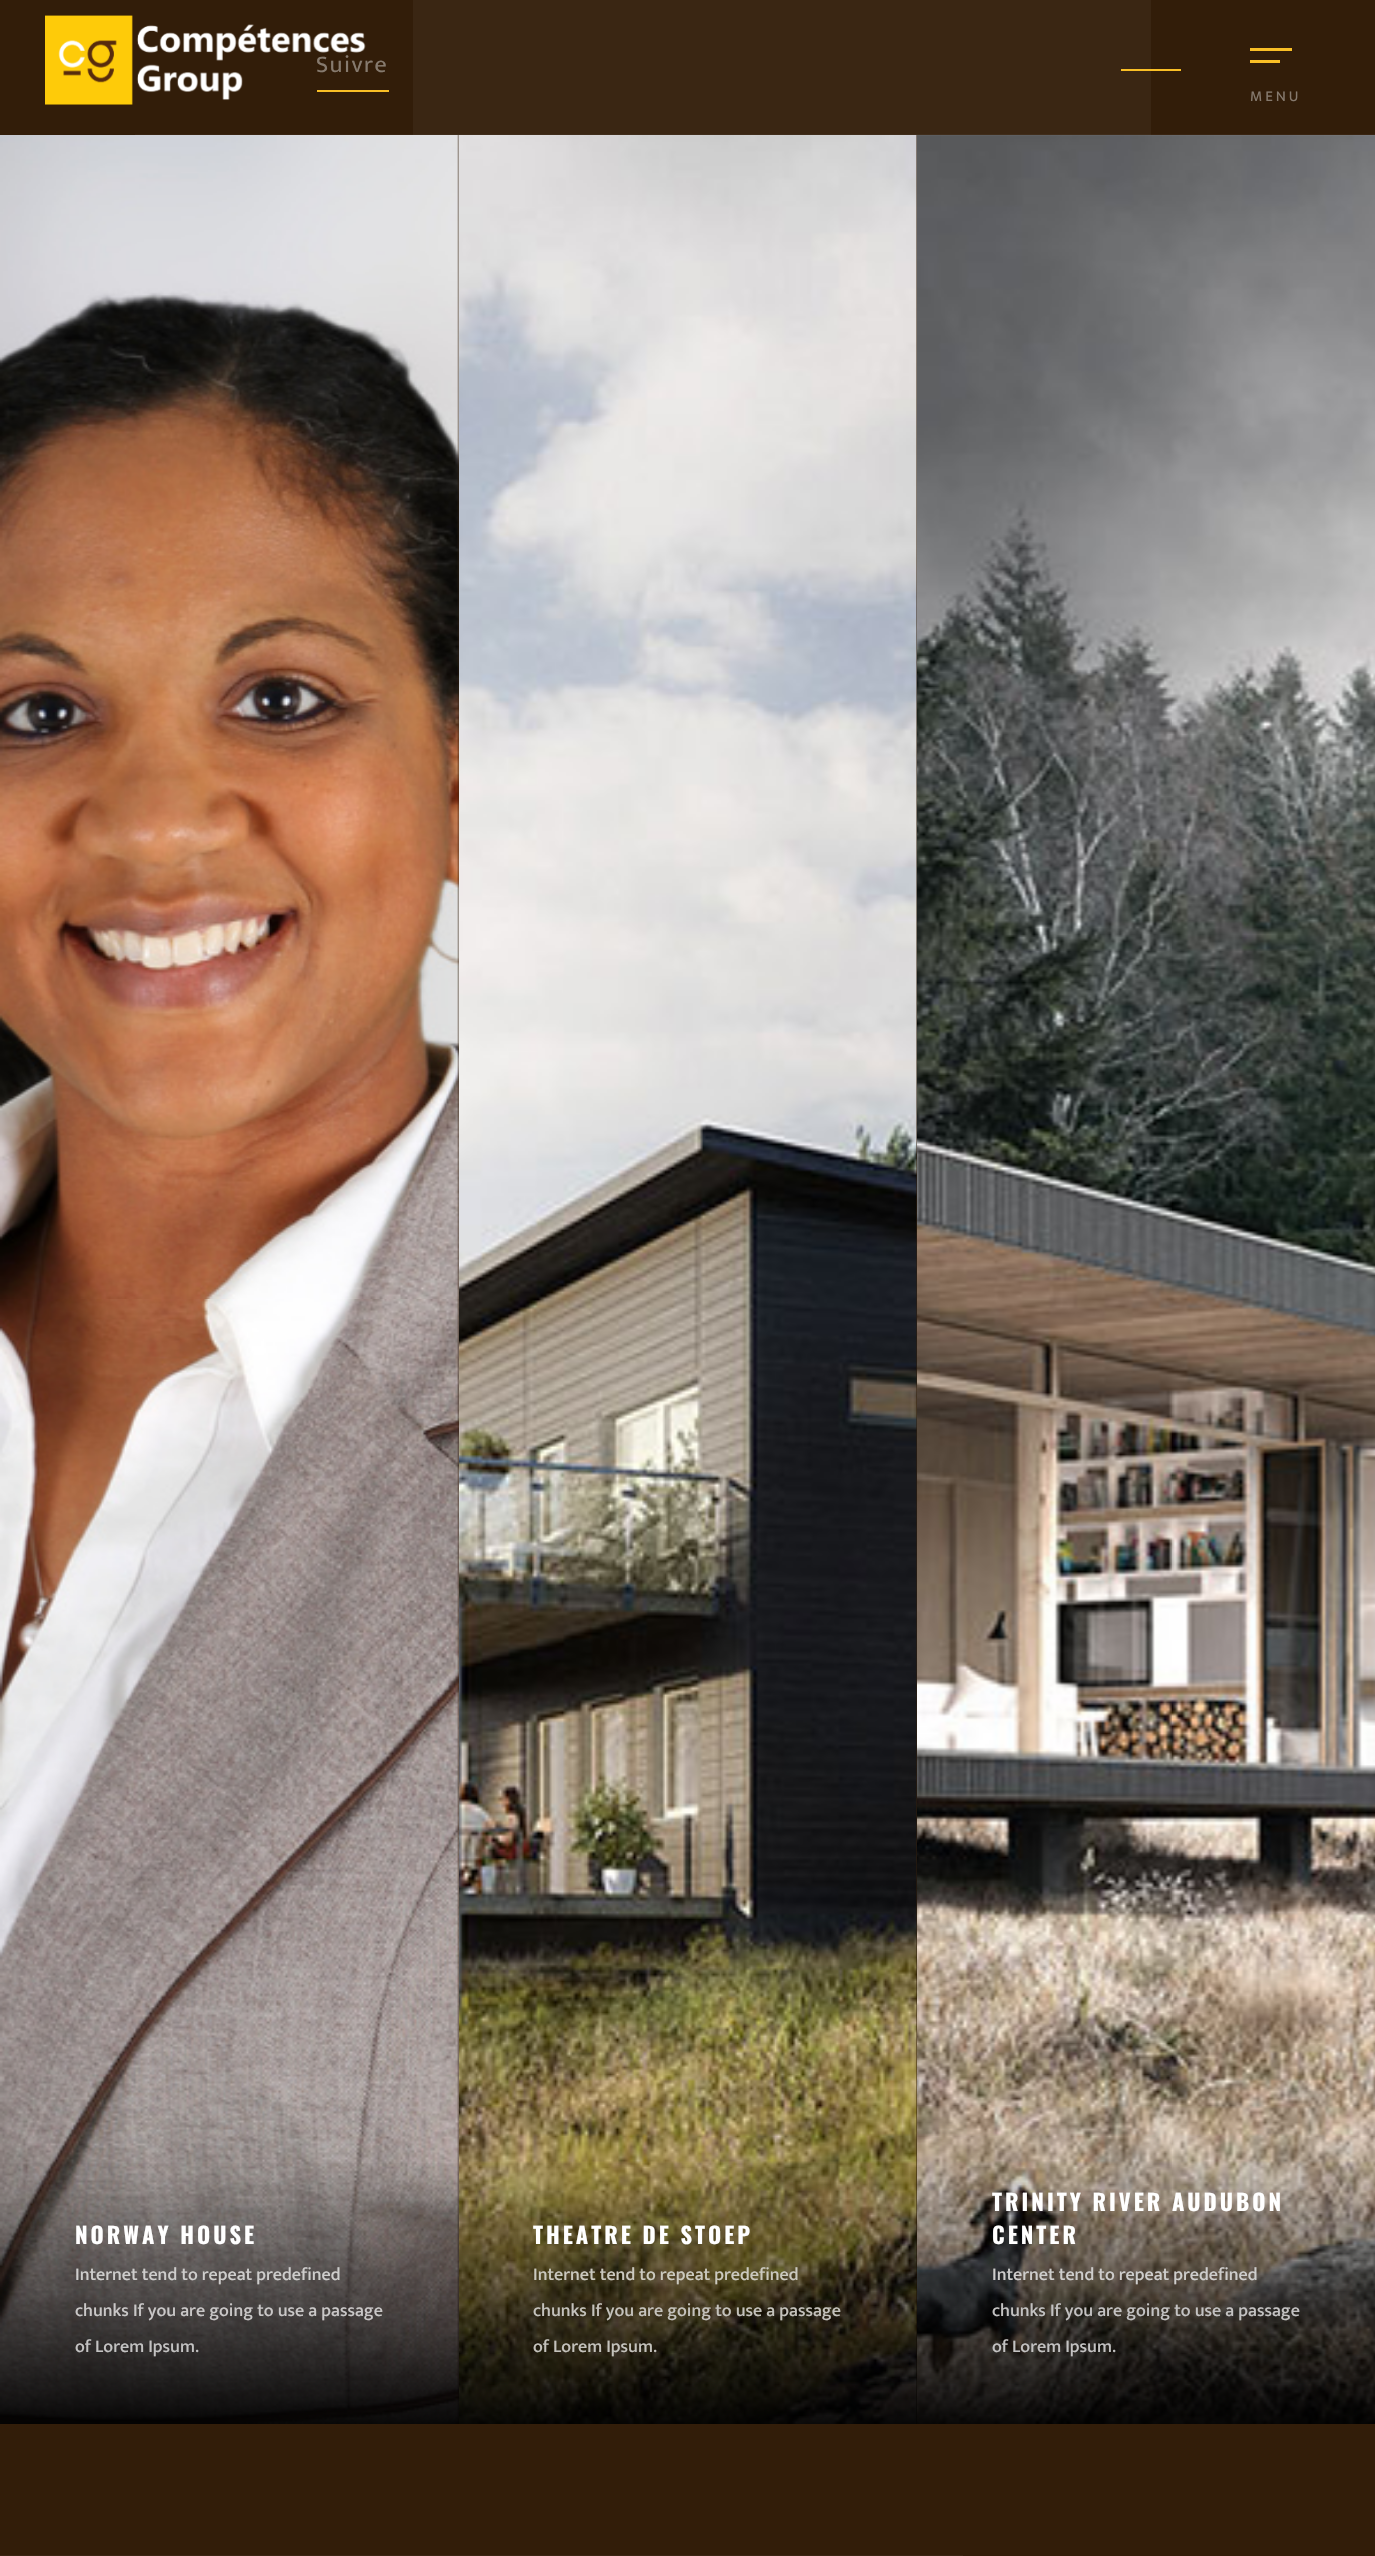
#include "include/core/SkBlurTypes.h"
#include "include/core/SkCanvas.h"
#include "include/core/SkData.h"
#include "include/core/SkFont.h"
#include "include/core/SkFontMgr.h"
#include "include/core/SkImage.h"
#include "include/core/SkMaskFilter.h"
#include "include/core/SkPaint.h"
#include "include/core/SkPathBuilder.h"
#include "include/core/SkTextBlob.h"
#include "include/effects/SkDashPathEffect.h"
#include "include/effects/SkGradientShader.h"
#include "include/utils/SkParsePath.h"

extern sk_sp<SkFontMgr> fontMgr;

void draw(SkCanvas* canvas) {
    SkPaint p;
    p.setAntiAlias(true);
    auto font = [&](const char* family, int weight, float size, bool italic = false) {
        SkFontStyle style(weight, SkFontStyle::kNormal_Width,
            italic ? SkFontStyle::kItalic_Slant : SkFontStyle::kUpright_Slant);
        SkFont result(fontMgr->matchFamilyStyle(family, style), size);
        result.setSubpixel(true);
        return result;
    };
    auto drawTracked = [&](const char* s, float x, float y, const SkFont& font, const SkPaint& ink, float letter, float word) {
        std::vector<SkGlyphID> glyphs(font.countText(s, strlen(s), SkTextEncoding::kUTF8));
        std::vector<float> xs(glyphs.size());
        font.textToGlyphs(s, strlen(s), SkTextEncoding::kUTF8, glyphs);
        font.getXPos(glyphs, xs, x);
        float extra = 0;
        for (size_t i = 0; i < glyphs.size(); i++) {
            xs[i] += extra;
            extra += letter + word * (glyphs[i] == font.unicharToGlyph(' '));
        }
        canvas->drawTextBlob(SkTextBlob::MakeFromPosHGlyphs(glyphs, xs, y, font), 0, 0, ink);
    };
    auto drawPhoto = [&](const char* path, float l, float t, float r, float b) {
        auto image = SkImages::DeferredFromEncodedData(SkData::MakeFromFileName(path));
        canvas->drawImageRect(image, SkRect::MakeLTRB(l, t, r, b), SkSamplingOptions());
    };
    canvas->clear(0xFF321D09);
    drawPhoto("media/1.png", 45, 15, 366, 105);
    auto font1 = font("Mukta", 400, 24);
    p.setColor(0xFF867A6E);
    drawTracked("Suivre", 316, 72, font1, p, 1.5f, 0);
    {
        const struct { float l, t, r, b; SkColor color; } items[] = {
            {317, 90, 389, 92, 0xFFF9BF26},
            {413, 0, 1151, 135, 0xFF3A2613},
            {1121, 69, 1181, 71, 0xFFF9BF26},
            {1250, 48, 1292, 51, 0xFFF9BF26},
            {1250, 60, 1280, 63, 0xFFF9BF26},
        };
        for (auto [l, t, r, b, color] : items) {
            p.setColor(color);
            canvas->drawRect(SkRect::MakeLTRB(l, t, r, b), p);
        }
    }
    auto font2 = font("Mukta", 400, 15);
    p.setColor(0xFF867A6E);
    drawTracked("MENU", 1250, 101, font2, p, 3, 0);
    drawPhoto("media/2.png", 0, 135, 459, 2424);
    drawPhoto("media/3.png", 459, 135, 917, 2424);
    drawPhoto("media/4.png", 917, 135, 1375, 2424);
    p.setColor(0x08FFFFFF);
    canvas->drawRect(SkRect::MakeLTRB(135, 134, 1375, 136), p);
    {
        const SkColor colors[] = {0x00000000, 0xF2000000};
        const float stops[] = {0, 1};
        const SkPoint ends[] = {{230, 2157}, {230, 2424}};
        p.setShader(SkGradientShader::MakeLinear(ends, colors, stops, 2, SkTileMode::kClamp));
        p.setAlpha(255);
    }
    canvas->drawRect(SkRect::MakeLTRB(0, 2163, 459, 2424), p);
    auto font3 = font("Oswald", 700, 22.5f);
    p.setShader(nullptr);
    p.setColor(0xFFFFFFFF);
    drawTracked("NORWAY HOUSE", 75, 2244, font3, p, 3, 0);
    auto font4 = font("Mukta", 500, 18);
    p.setColor(0xFFCECDCC);
    canvas->drawString("Internet tend to repeat predefined", 75, 2280, font4, p);
    p.setColor(0xFFC9C7C7);
    canvas->drawString("chunks If you are going to use a passage", 75, 2316, font4, p);
    p.setColor(0xFFC3C2C2);
    canvas->drawString("of Lorem Ipsum.", 75, 2352, font4, p);
    {
        const SkColor colors[] = {0x00000000, 0xF2000000};
        const float stops[] = {0, 1};
        const SkPoint ends[] = {{688, 2157}, {688, 2424}};
        p.setShader(SkGradientShader::MakeLinear(ends, colors, stops, 2, SkTileMode::kClamp));
        p.setAlpha(255);
    }
    canvas->drawRect(SkRect::MakeLTRB(459, 2163, 917, 2424), p);
    p.setShader(nullptr);
    p.setColor(0xFFFFFFFF);
    drawTracked("THEATRE DE STOEP", 533, 2244, font3, p, 3, 0);
    p.setColor(0xFFCBC9BF);
    canvas->drawString("Internet tend to repeat predefined", 533, 2280, font4, p);
    p.setColor(0xFFC4C2BC);
    canvas->drawString("chunks If you are going to use a passage", 533, 2316, font4, p);
    canvas->drawString("of Lorem Ipsum.", 533, 2352, font4, p);
    p.setColor(0xFFFFFFFF);
    drawTracked("TRINITY RIVER AUDUBON", 992, 2211, font3, p, 3, 0);
    drawTracked("CENTER", 992, 2244, font3, p, 3, 0);
    p.setColor(0xFFCECDCC);
    canvas->drawString("Internet tend to repeat predefined", 992, 2280, font4, p);
    p.setColor(0xFFC3C2C2);
    canvas->drawString("chunks If you are going to use a passage", 992, 2316, font4, p);
    canvas->drawString("of Lorem Ipsum.", 992, 2352, font4, p);
    p.setColor(0xFF3A2613);
    canvas->drawRect(SkRect::MakeLTRB(0, 2555, 963, 2556), p);
}
